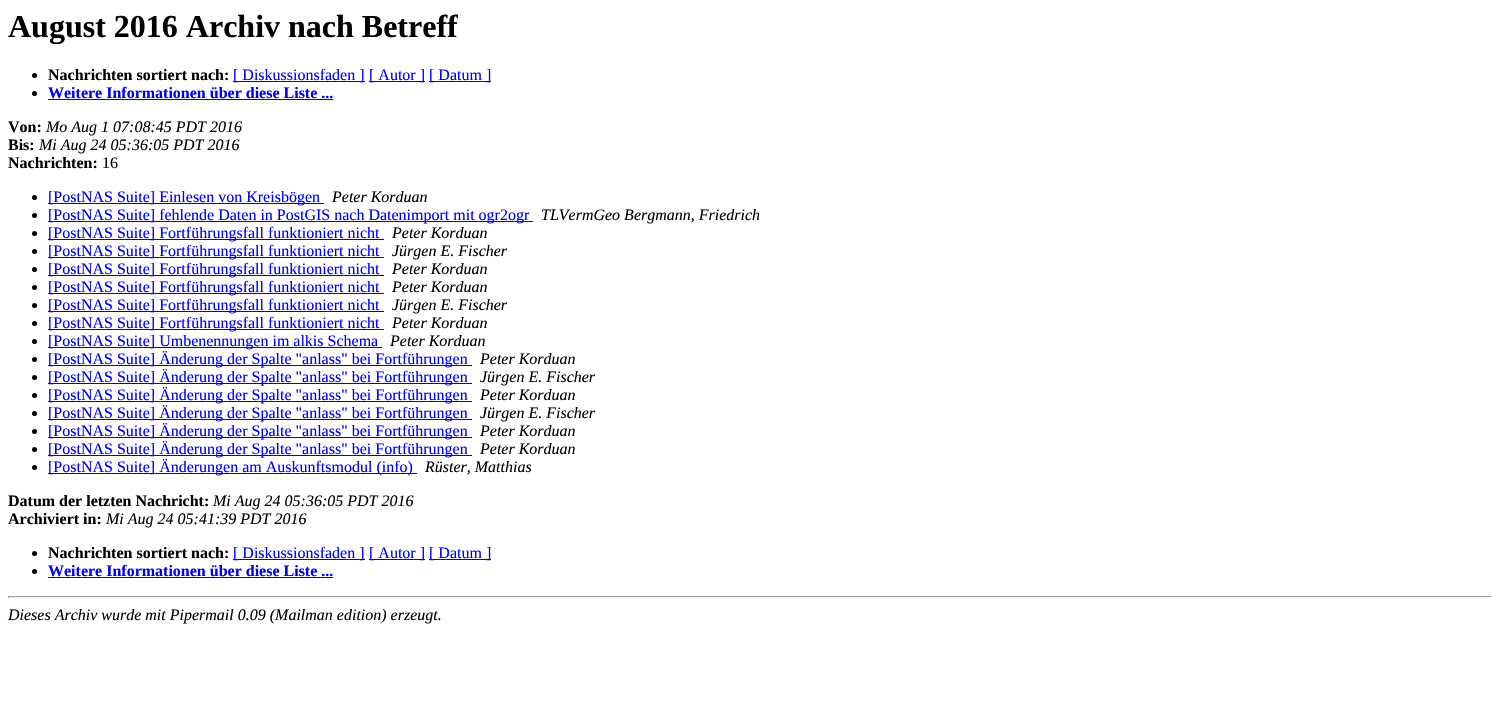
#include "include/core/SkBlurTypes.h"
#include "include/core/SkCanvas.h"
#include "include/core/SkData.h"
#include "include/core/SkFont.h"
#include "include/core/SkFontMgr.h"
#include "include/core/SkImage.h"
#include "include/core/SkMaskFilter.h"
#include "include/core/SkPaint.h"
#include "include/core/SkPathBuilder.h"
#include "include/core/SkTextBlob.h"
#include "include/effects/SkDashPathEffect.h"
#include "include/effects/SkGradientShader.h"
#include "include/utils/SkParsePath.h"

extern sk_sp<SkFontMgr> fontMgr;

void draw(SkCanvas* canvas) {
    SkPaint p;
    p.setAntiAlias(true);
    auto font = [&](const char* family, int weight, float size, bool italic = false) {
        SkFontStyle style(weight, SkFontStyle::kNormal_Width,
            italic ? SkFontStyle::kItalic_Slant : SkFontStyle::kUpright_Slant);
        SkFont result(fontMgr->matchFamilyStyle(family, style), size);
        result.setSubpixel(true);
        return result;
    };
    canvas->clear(0xFFFFFFFF);
    auto font1 = font("Liberation Serif", 700, 32);
    p.setColor(0xFF000000);
    canvas->drawString("August 2016 Archiv nach Betreff", 8, 37, font1, p);
    canvas->drawCircle(34.5f, 75.5f, 2.5f, p);
    auto font2 = font("Liberation Serif", 700, 16);
    canvas->drawString("Nachrichten sortiert nach:", 48, 80, font2, p);
    p.setColor(0xFF0000EE);
    canvas->drawRect(SkRect::MakeLTRB(233, 81, 365, 82), p);
    auto font3 = font("Liberation Serif", 400, 16);
    canvas->drawString("[ Diskussionsfaden ]", 233, 80, font3, p);
    canvas->drawRect(SkRect::MakeLTRB(369, 81, 425, 82), p);
    canvas->drawString("[ Autor ]", 369, 80, font3, p);
    canvas->drawRect(SkRect::MakeLTRB(429, 81, 491, 82), p);
    canvas->drawString("[ Datum ]", 429, 80, font3, p);
    p.setColor(0xFF000000);
    canvas->drawCircle(34.5f, 93.5f, 2.5f, p);
    p.setColor(0xFF0000EE);
    canvas->drawString("Weitere Informationen über diese Liste ...", 48, 98, font2, p);
    canvas->drawRect(SkRect::MakeLTRB(48, 99, 333, 100), p);
    p.setColor(0xFF000000);
    canvas->drawString("Von:", 8, 132, font2, p);
    auto font4 = font("Liberation Serif", 400, 16, true);
    canvas->drawString("Mo Aug 1 07:08:45 PDT 2016", 46, 132, font4, p);
    canvas->drawString("Bis:", 8, 150, font2, p);
    canvas->drawString("Mi Aug 24 05:36:05 PDT 2016", 39, 150, font4, p);
    canvas->drawString("Nachrichten:", 8, 168, font2, p);
    canvas->drawString("16", 102, 168, font3, p);
    canvas->drawCircle(34.5f, 197.5f, 2.5f, p);
    p.setColor(0xFF0000EE);
    canvas->drawRect(SkRect::MakeLTRB(48, 203, 324, 204), p);
    canvas->drawString("[PostNAS Suite] Einlesen von Kreisbögen", 48, 202, font3, p);
    p.setColor(0xFF000000);
    canvas->drawString("Peter Korduan", 332, 202, font4, p);
    canvas->drawCircle(34.5f, 215.5f, 2.5f, p);
    p.setColor(0xFF0000EE);
    canvas->drawRect(SkRect::MakeLTRB(48, 221, 533, 222), p);
    canvas->drawString("[PostNAS Suite] fehlende Daten in PostGIS nach Datenimport mit ogr2ogr", 48, 220, font3, p);
    p.setColor(0xFF000000);
    canvas->drawString("TLVermGeo Bergmann, Friedrich", 541, 220, font4, p);
    canvas->drawCircle(34.5f, 233.5f, 2.5f, p);
    p.setColor(0xFF0000EE);
    canvas->drawRect(SkRect::MakeLTRB(48, 239, 384, 240), p);
    canvas->drawString("[PostNAS Suite] Fortführungsfall funktioniert nicht", 48, 238, font3, p);
    p.setColor(0xFF000000);
    canvas->drawString("Peter Korduan", 392, 238, font4, p);
    canvas->drawCircle(34.5f, 251.5f, 2.5f, p);
    p.setColor(0xFF0000EE);
    canvas->drawRect(SkRect::MakeLTRB(48, 257, 384, 258), p);
    canvas->drawString("[PostNAS Suite] Fortführungsfall funktioniert nicht", 48, 256, font3, p);
    p.setColor(0xFF000000);
    canvas->drawString("Jürgen E. Fischer", 392, 256, font4, p);
    canvas->drawCircle(34.5f, 269.5f, 2.5f, p);
    p.setColor(0xFF0000EE);
    canvas->drawRect(SkRect::MakeLTRB(48, 275, 384, 276), p);
    canvas->drawString("[PostNAS Suite] Fortführungsfall funktioniert nicht", 48, 274, font3, p);
    p.setColor(0xFF000000);
    canvas->drawString("Peter Korduan", 392, 274, font4, p);
    canvas->drawCircle(34.5f, 287.5f, 2.5f, p);
    p.setColor(0xFF0000EE);
    canvas->drawRect(SkRect::MakeLTRB(48, 293, 384, 294), p);
    canvas->drawString("[PostNAS Suite] Fortführungsfall funktioniert nicht", 48, 292, font3, p);
    p.setColor(0xFF000000);
    canvas->drawString("Peter Korduan", 392, 292, font4, p);
    canvas->drawCircle(34.5f, 305.5f, 2.5f, p);
    p.setColor(0xFF0000EE);
    canvas->drawRect(SkRect::MakeLTRB(48, 311, 384, 312), p);
    canvas->drawString("[PostNAS Suite] Fortführungsfall funktioniert nicht", 48, 310, font3, p);
    p.setColor(0xFF000000);
    canvas->drawString("Jürgen E. Fischer", 392, 310, font4, p);
    canvas->drawCircle(34.5f, 323.5f, 2.5f, p);
    p.setColor(0xFF0000EE);
    canvas->drawRect(SkRect::MakeLTRB(48, 329, 384, 330), p);
    canvas->drawString("[PostNAS Suite] Fortführungsfall funktioniert nicht", 48, 328, font3, p);
    p.setColor(0xFF000000);
    canvas->drawString("Peter Korduan", 392, 328, font4, p);
    canvas->drawCircle(34.5f, 341.5f, 2.5f, p);
    p.setColor(0xFF0000EE);
    canvas->drawRect(SkRect::MakeLTRB(48, 347, 382, 348), p);
    canvas->drawString("[PostNAS Suite] Umbenennungen im alkis Schema", 48, 346, font3, p);
    p.setColor(0xFF000000);
    canvas->drawString("Peter Korduan", 390, 346, font4, p);
    canvas->drawCircle(34.5f, 359.5f, 2.5f, p);
    p.setColor(0xFF0000EE);
    canvas->drawRect(SkRect::MakeLTRB(48, 365, 472, 366), p);
    canvas->drawString("[PostNAS Suite] Änderung der Spalte \"anlass\" bei Fortführungen", 48, 364, font3, p);
    p.setColor(0xFF000000);
    canvas->drawString("Peter Korduan", 480, 364, font4, p);
    canvas->drawCircle(34.5f, 377.5f, 2.5f, p);
    p.setColor(0xFF0000EE);
    canvas->drawRect(SkRect::MakeLTRB(48, 383, 472, 384), p);
    canvas->drawString("[PostNAS Suite] Änderung der Spalte \"anlass\" bei Fortführungen", 48, 382, font3, p);
    p.setColor(0xFF000000);
    canvas->drawString("Jürgen E. Fischer", 480, 382, font4, p);
    canvas->drawCircle(34.5f, 395.5f, 2.5f, p);
    p.setColor(0xFF0000EE);
    canvas->drawRect(SkRect::MakeLTRB(48, 401, 472, 402), p);
    canvas->drawString("[PostNAS Suite] Änderung der Spalte \"anlass\" bei Fortführungen", 48, 400, font3, p);
    p.setColor(0xFF000000);
    canvas->drawString("Peter Korduan", 480, 400, font4, p);
    canvas->drawCircle(34.5f, 413.5f, 2.5f, p);
    p.setColor(0xFF0000EE);
    canvas->drawRect(SkRect::MakeLTRB(48, 419, 472, 420), p);
    canvas->drawString("[PostNAS Suite] Änderung der Spalte \"anlass\" bei Fortführungen", 48, 418, font3, p);
    p.setColor(0xFF000000);
    canvas->drawString("Jürgen E. Fischer", 480, 418, font4, p);
    canvas->drawCircle(34.5f, 431.5f, 2.5f, p);
    p.setColor(0xFF0000EE);
    canvas->drawRect(SkRect::MakeLTRB(48, 437, 472, 438), p);
    canvas->drawString("[PostNAS Suite] Änderung der Spalte \"anlass\" bei Fortführungen", 48, 436, font3, p);
    p.setColor(0xFF000000);
    canvas->drawString("Peter Korduan", 480, 436, font4, p);
    canvas->drawCircle(34.5f, 449.5f, 2.5f, p);
    p.setColor(0xFF0000EE);
    canvas->drawRect(SkRect::MakeLTRB(48, 455, 472, 456), p);
    canvas->drawString("[PostNAS Suite] Änderung der Spalte \"anlass\" bei Fortführungen", 48, 454, font3, p);
    p.setColor(0xFF000000);
    canvas->drawString("Peter Korduan", 480, 454, font4, p);
    canvas->drawCircle(34.5f, 467.5f, 2.5f, p);
    p.setColor(0xFF0000EE);
    canvas->drawRect(SkRect::MakeLTRB(48, 473, 417, 474), p);
    canvas->drawString("[PostNAS Suite] Änderungen am Auskunftsmodul (info)", 48, 472, font3, p);
    p.setColor(0xFF000000);
    canvas->drawString("Rüster, Matthias", 425, 472, font4, p);
    canvas->drawString("Datum der letzten Nachricht:", 8, 506, font2, p);
    canvas->drawString("Mi Aug 24 05:36:05 PDT 2016", 213, 506, font4, p);
    canvas->drawString("Archiviert in:", 8, 524, font2, p);
    canvas->drawString("Mi Aug 24 05:41:39 PDT 2016", 106, 524, font4, p);
    canvas->drawCircle(34.5f, 553.5f, 2.5f, p);
    canvas->drawString("Nachrichten sortiert nach:", 48, 558, font2, p);
    p.setColor(0xFF0000EE);
    canvas->drawRect(SkRect::MakeLTRB(233, 559, 365, 560), p);
    canvas->drawString("[ Diskussionsfaden ]", 233, 558, font3, p);
    canvas->drawRect(SkRect::MakeLTRB(369, 559, 425, 560), p);
    canvas->drawString("[ Autor ]", 369, 558, font3, p);
    canvas->drawRect(SkRect::MakeLTRB(429, 559, 491, 560), p);
    canvas->drawString("[ Datum ]", 429, 558, font3, p);
    p.setColor(0xFF000000);
    canvas->drawCircle(34.5f, 571.5f, 2.5f, p);
    p.setColor(0xFF0000EE);
    canvas->drawString("Weitere Informationen über diese Liste ...", 48, 576, font2, p);
    {
        const struct { float l, t, r, b; SkColor color; } items[] = {
            {48, 577, 333, 578, 0xFF0000EE},
            {8, 596, 1492, 597, 0xFF9F9F9F},
            {1491, 596, 1492, 598, 0xFFEEEEEE},
            {8, 597, 1492, 598, 0xFFEEEEEE},
            {8, 596, 9, 598, 0xFF9F9F9F},
        };
        for (auto [l, t, r, b, color] : items) {
            p.setColor(color);
            canvas->drawRect(SkRect::MakeLTRB(l, t, r, b), p);
        }
    }
    p.setColor(0xFF000000);
    canvas->drawString("Dieses Archiv wurde mit Pipermail 0.09 (Mailman edition) erzeugt.", 8, 620, font4, p);
}
